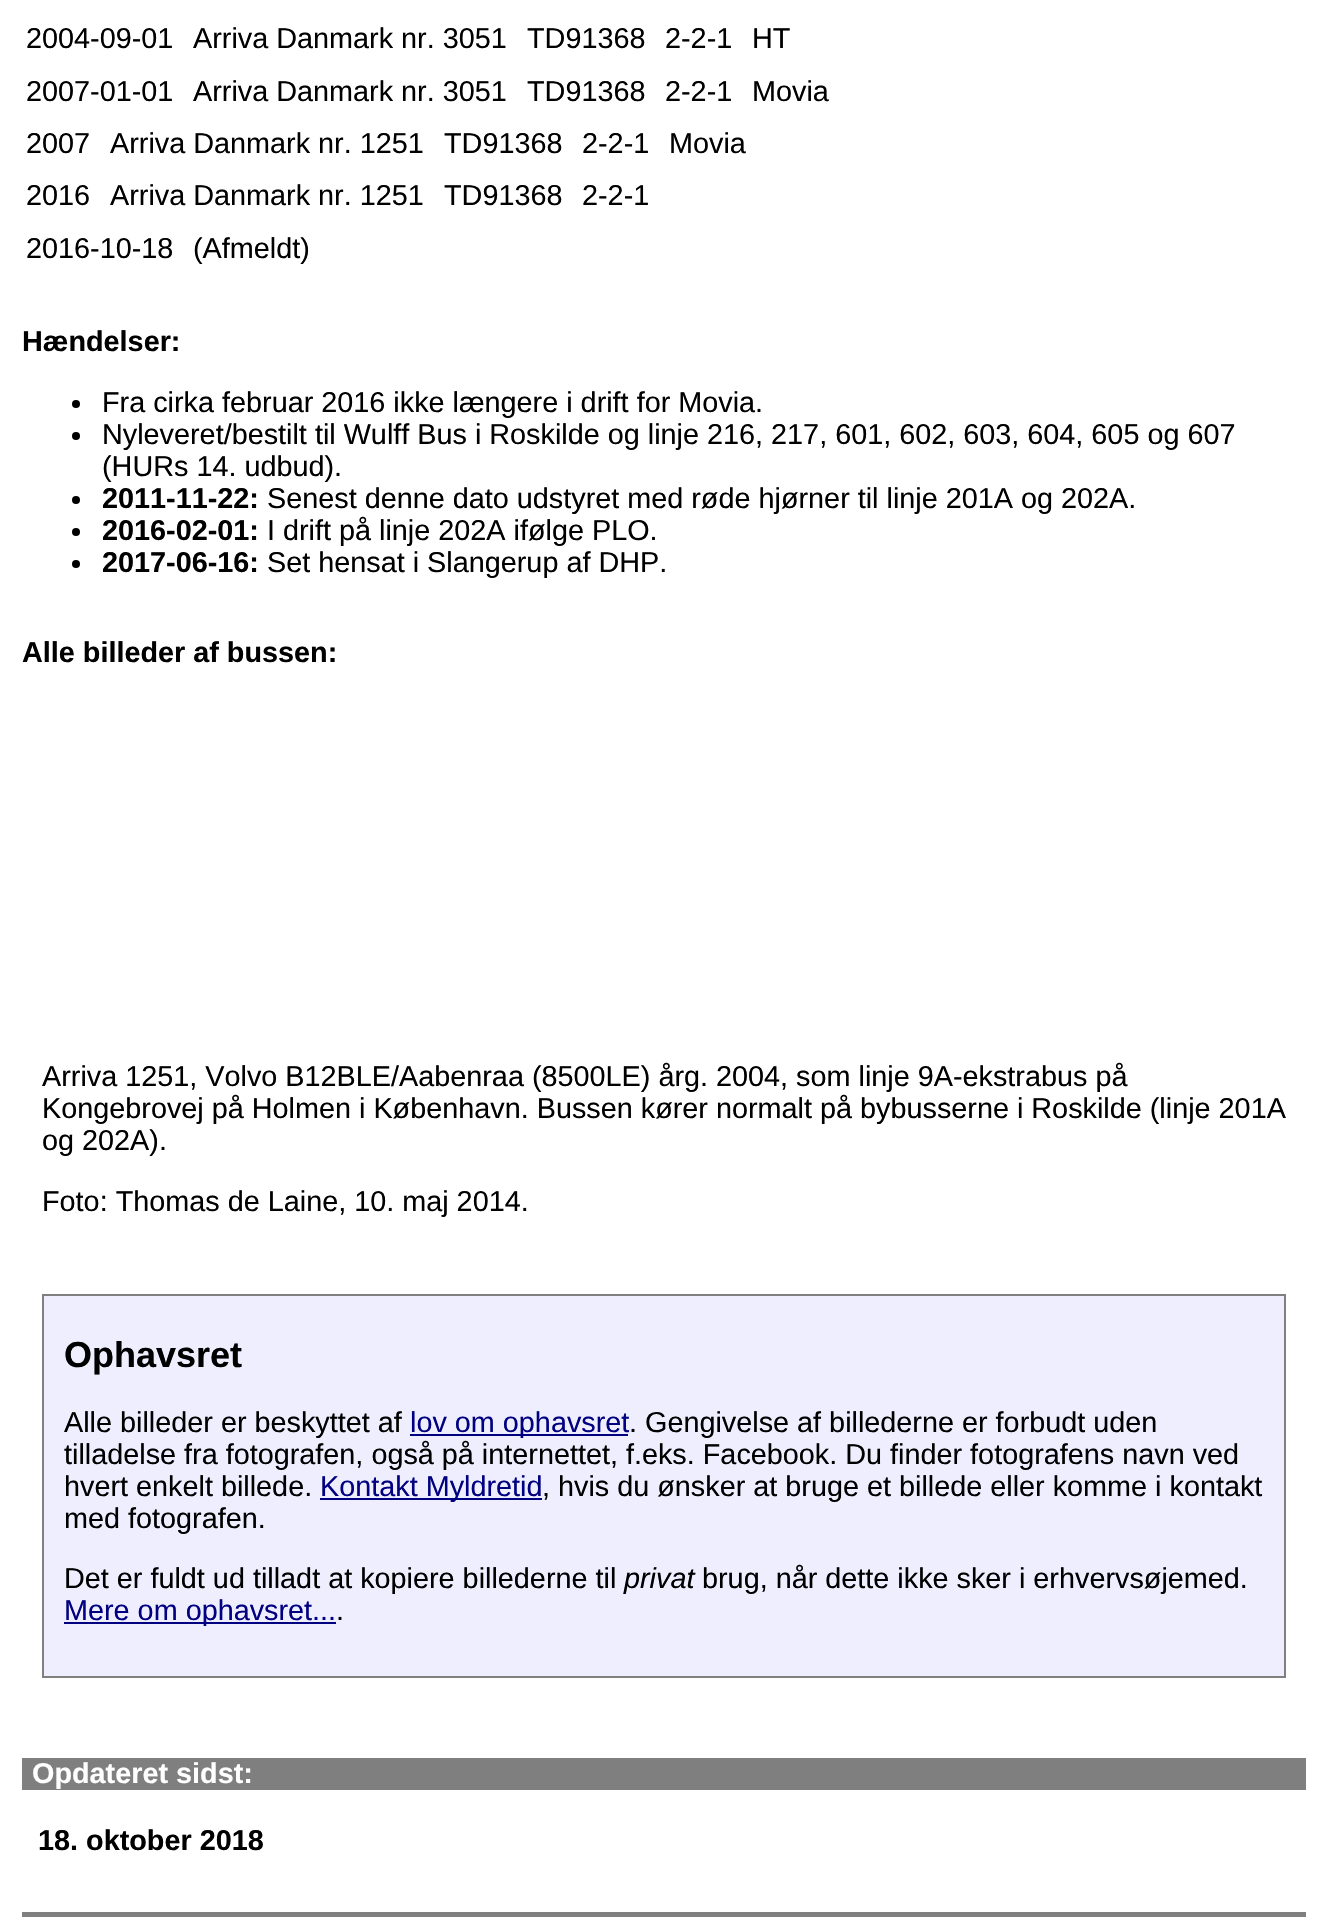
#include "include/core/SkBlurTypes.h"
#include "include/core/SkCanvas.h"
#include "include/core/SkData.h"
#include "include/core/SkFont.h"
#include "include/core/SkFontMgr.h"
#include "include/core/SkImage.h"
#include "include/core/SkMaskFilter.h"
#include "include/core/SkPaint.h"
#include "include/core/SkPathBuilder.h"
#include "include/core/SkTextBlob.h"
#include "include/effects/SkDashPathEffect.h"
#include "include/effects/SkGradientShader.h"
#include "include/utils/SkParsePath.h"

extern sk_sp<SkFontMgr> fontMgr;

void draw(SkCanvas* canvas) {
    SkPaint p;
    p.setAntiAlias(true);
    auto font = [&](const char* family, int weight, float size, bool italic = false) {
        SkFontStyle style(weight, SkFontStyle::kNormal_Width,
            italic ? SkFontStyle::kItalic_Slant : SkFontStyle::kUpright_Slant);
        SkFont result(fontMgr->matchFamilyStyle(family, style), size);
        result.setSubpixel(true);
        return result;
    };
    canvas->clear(0xFFFFFFFF);
    auto font1 = font("Liberation Sans", 400, 28.8f);
    p.setColor(0xFF000000);
    {
        const struct { const char* s; float x, y; } items[] = {
            {"2004-09-01", 26, 48},
            {"Arriva Danmark nr. 3051", 193, 48},
            {"TD91368", 527, 48},
            {"2-2-1", 665, 48},
            {"HT", 752, 48},
            {"2007-01-01", 26, 101},
            {"Arriva Danmark nr. 3051", 193, 101},
            {"TD91368", 527, 101},
            {"2-2-1", 665, 101},
            {"Movia", 752, 101},
            {"2007", 26, 153},
            {"Arriva Danmark nr. 1251", 110, 153},
            {"TD91368", 444, 153},
            {"2-2-1", 582, 153},
            {"Movia", 669, 153},
            {"2016", 26, 205},
            {"Arriva Danmark nr. 1251", 110, 205},
            {"TD91368", 444, 205},
            {"2-2-1", 582, 205},
            {"2016-10-18", 26, 258},
            {"(Afmeldt)", 193, 258},
        };
        for (auto [s, x, y] : items) {
            canvas->drawString(s, x, y, font1, p);
        }
    }
    auto font2 = font("Liberation Sans", 700, 28.8f);
    canvas->drawString("Hændelser:", 22, 351, font2, p);
    canvas->drawCircle(76, 404, 4, p);
    canvas->drawString("Fra cirka februar 2016 ikke længere i drift for Movia.", 102, 412, font1, p);
    canvas->drawCircle(76, 436, 4, p);
    canvas->drawString("Nyleveret/bestilt til Wulff Bus i Roskilde og linje 216, 217, 601, 602, 603, 604, 605 og 607", 102, 444, font1, p);
    canvas->drawString("(HURs 14. udbud).", 102, 476, font1, p);
    canvas->drawCircle(76, 500, 4, p);
    canvas->drawString("2011-11-22:", 102, 508, font2, p);
    canvas->drawString("Senest denne dato udstyret med røde hjørner til linje 201A og 202A.", 267, 508, font1, p);
    canvas->drawCircle(76, 532, 4, p);
    canvas->drawString("2016-02-01:", 102, 540, font2, p);
    canvas->drawString("I drift på linje 202A ifølge PLO.", 267, 540, font1, p);
    canvas->drawCircle(76, 564, 4, p);
    canvas->drawString("2017-06-16:", 102, 572, font2, p);
    canvas->drawString("Set hensat i Slangerup af DHP.", 267, 572, font1, p);
    canvas->drawString("Alle billeder af bussen:", 22, 662, font2, p);
    {
        const struct { const char* s; float x, y; } items[] = {
            {"Arriva 1251, Volvo B12BLE/Aabenraa (8500LE) årg. 2004, som linje 9A-ekstrabus på", 42, 1086},
            {"Kongebrovej på Holmen i København. Bussen kører normalt på bybusserne i Roskilde (linje 201A", 42, 1118},
            {"og 202A).", 42, 1150},
            {"Foto: Thomas de Laine, 10. maj 2014.", 42, 1211},
        };
        for (auto [s, x, y] : items) {
            canvas->drawString(s, x, y, font1, p);
        }
    }
    p.setColor(0xFFEEEEFF);
    canvas->drawRect(SkRect::MakeLTRB(43, 1295, 1285, 1677), p);
    p.setStyle(SkPaint::kStroke_Style);
    p.setStrokeWidth(2);
    p.setColor(0xFF7F7F7F);
    canvas->drawRect(SkRect::MakeLTRB(43, 1295, 1285, 1677), p);
    auto font3 = font("Liberation Sans", 700, 36);
    p.setStyle(SkPaint::kFill_Style);
    p.setColor(0xFF000000);
    canvas->drawString("Ophavsret", 64, 1367, font3, p);
    canvas->drawString("Alle billeder er beskyttet af", 64, 1432, font1, p);
    p.setColor(0xFF000080);
    canvas->drawRect(SkRect::MakeLTRB(410, 1434, 628, 1436), p);
    canvas->drawString("lov om ophavsret", 410, 1432, font1, p);
    p.setColor(0xFF000000);
    {
        const struct { const char* s; float x, y; } items[] = {
            {". Gengivelse af billederne er forbudt uden", 629, 1432},
            {"tilladelse fra fotografen, også på internettet, f.eks. Facebook. Du finder fotografens navn ved", 64, 1464},
            {"hvert enkelt billede.", 64, 1496},
        };
        for (auto [s, x, y] : items) {
            canvas->drawString(s, x, y, font1, p);
        }
    }
    p.setColor(0xFF000080);
    canvas->drawRect(SkRect::MakeLTRB(320, 1498, 542, 1500), p);
    canvas->drawString("Kontakt Myldretid", 320, 1496, font1, p);
    p.setColor(0xFF000000);
    {
        const struct { const char* s; float x, y; } items[] = {
            {", hvis du ønsker at bruge et billede eller komme i kontakt", 542, 1496},
            {"med fotografen.", 64, 1528},
            {"Det er fuldt ud tilladt at kopiere billederne til", 64, 1588},
        };
        for (auto [s, x, y] : items) {
            canvas->drawString(s, x, y, font1, p);
        }
    }
    auto font4 = font("Liberation Sans", 400, 28.8f, true);
    canvas->drawString("privat", 624, 1588, font4, p);
    canvas->drawString("brug, når dette ikke sker i erhvervsøjemed.", 702, 1588, font1, p);
    p.setColor(0xFF000080);
    canvas->drawRect(SkRect::MakeLTRB(64, 1622, 336, 1624), p);
    canvas->drawString("Mere om ophavsret...", 64, 1620, font1, p);
    p.setColor(0xFF000000);
    canvas->drawString(".", 336, 1620, font1, p);
    p.setColor(0xFF7F7F7F);
    canvas->drawRect(SkRect::MakeLTRB(22, 1758, 1306, 1790), p);
    p.setColor(0xFFFFFFFF);
    canvas->drawString("Opdateret sidst:", 32, 1783, font2, p);
    p.setColor(0xFF000000);
    canvas->drawString("18. oktober 2018", 38, 1850, font2, p);
    p.setColor(0xFF7F7F7F);
    canvas->drawRect(SkRect::MakeLTRB(22, 1912, 1306, 1917), p);
}
